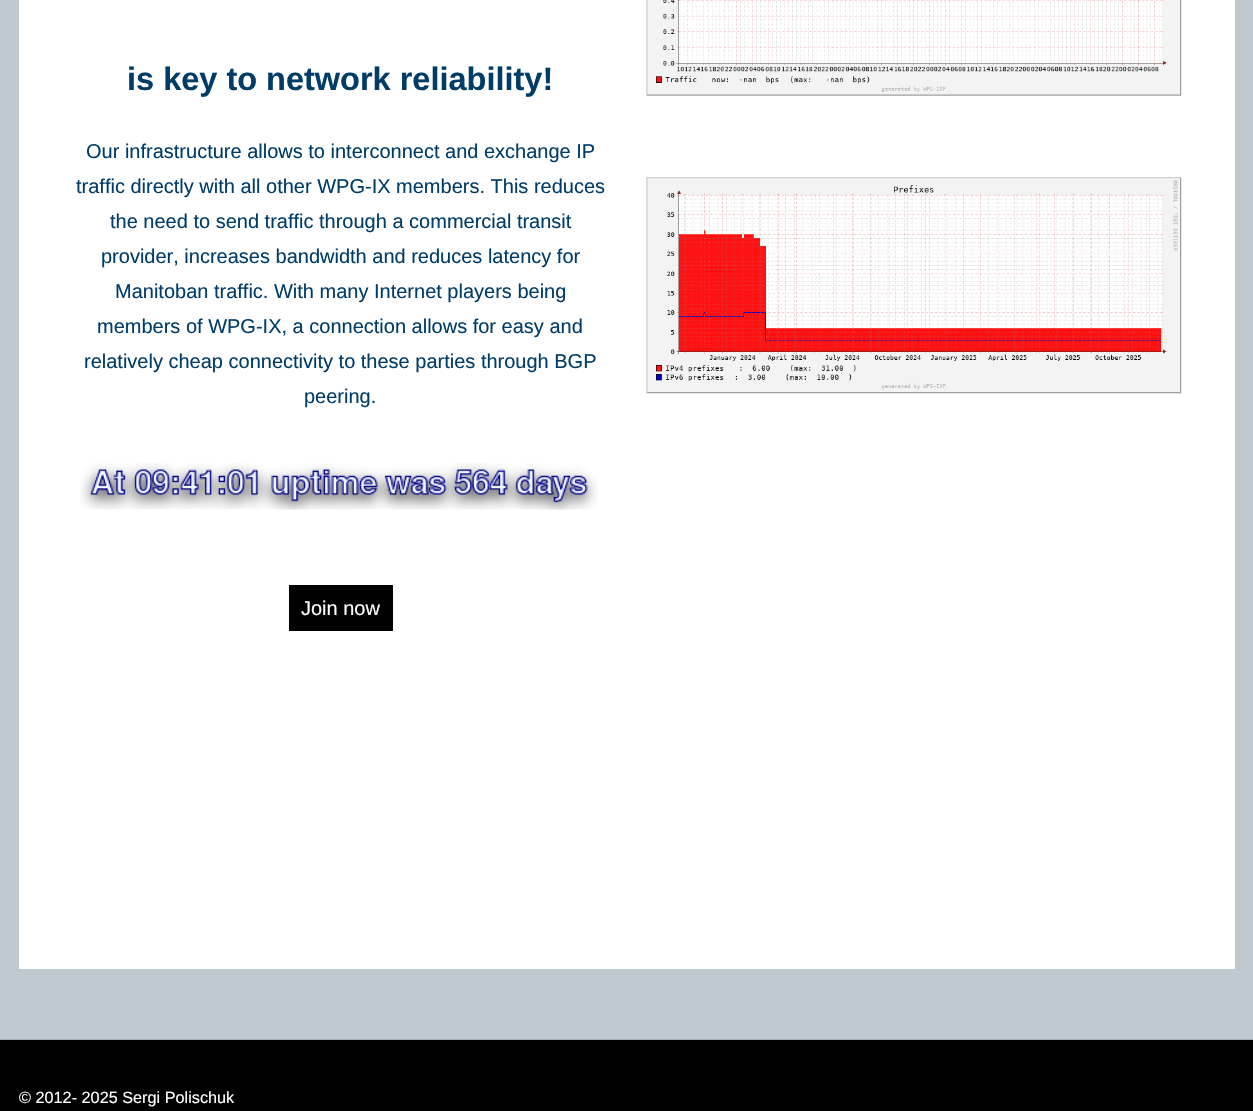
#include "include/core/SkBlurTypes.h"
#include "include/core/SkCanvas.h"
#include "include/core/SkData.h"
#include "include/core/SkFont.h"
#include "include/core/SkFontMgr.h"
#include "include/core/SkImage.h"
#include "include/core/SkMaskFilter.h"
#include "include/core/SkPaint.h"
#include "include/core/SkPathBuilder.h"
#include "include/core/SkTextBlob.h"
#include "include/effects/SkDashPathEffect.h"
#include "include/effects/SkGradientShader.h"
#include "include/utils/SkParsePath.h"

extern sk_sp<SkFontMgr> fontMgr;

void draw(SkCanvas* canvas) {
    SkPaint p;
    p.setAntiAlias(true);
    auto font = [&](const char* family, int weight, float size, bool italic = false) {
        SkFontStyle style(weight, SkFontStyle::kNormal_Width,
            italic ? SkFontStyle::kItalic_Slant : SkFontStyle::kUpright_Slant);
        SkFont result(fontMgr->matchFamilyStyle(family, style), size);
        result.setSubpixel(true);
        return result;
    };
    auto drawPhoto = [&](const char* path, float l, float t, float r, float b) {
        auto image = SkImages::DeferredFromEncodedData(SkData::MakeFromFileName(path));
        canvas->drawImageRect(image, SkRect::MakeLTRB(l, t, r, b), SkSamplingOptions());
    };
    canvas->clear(0xFFC0C9D0);
    p.setColor(0xFFFFFFFF);
    canvas->drawRect(SkRect::MakeLTRB(19, 0, 1235, 969), p);
    auto font1 = font("Liberation Sans", 700, 32.5f);
    p.setColor(0xFF003C68);
    canvas->drawString("is key to network reliability!", 127, 90, font1, p);
    auto font2 = font("Liberation Sans", 400, 20);
    {
        const struct { const char* s; float x, y; } items[] = {
            {"Our infrastructure allows to interconnect and exchange IP", 86, 158},
            {"traffic directly with all other WPG-IX members. This reduces", 76, 193},
            {"the need to send traffic through a commercial transit", 110, 228},
            {"provider, increases bandwidth and reduces latency for", 101, 263},
            {"Manitoban traffic. With many Internet players being", 115, 298},
            {"members of WPG-IX, a connection allows for easy and", 97, 333},
            {"relatively cheap connectivity to these parties through BGP", 84, 368},
            {"peering.", 304, 403},
        };
        for (auto [s, x, y] : items) {
            canvas->drawString(s, x, y, font2, p);
        }
    }
    drawPhoto("media/1.png", 80, 463, 598, 510);
    p.setColor(0xFF000000);
    canvas->drawRect(SkRect::MakeLTRB(289, 585, 393, 631), p);
    p.setColor(0xFFFFFFFF);
    canvas->drawString("Join now", 301, 615, font2, p);
    drawPhoto("media/2.png", 646, 0, 1182, 96);
    drawPhoto("media/3.png", 646, 177, 1182, 394);
    p.setColor(0xFF000000);
    canvas->drawRect(SkRect::MakeLTRB(0, 1040, 1253, 1111), p);
    p.setColor(0xFFAAAAAA);
    canvas->drawRect(SkRect::MakeLTRB(0, 1039, 1253, 1040), p);
    auto font3 = font("Liberation Sans", 400, 16.25f);
    p.setColor(0xFFFFFFFF);
    canvas->drawString("© 2012- 2025 Sergi Polischuk", 19, 1103, font3, p);
}
